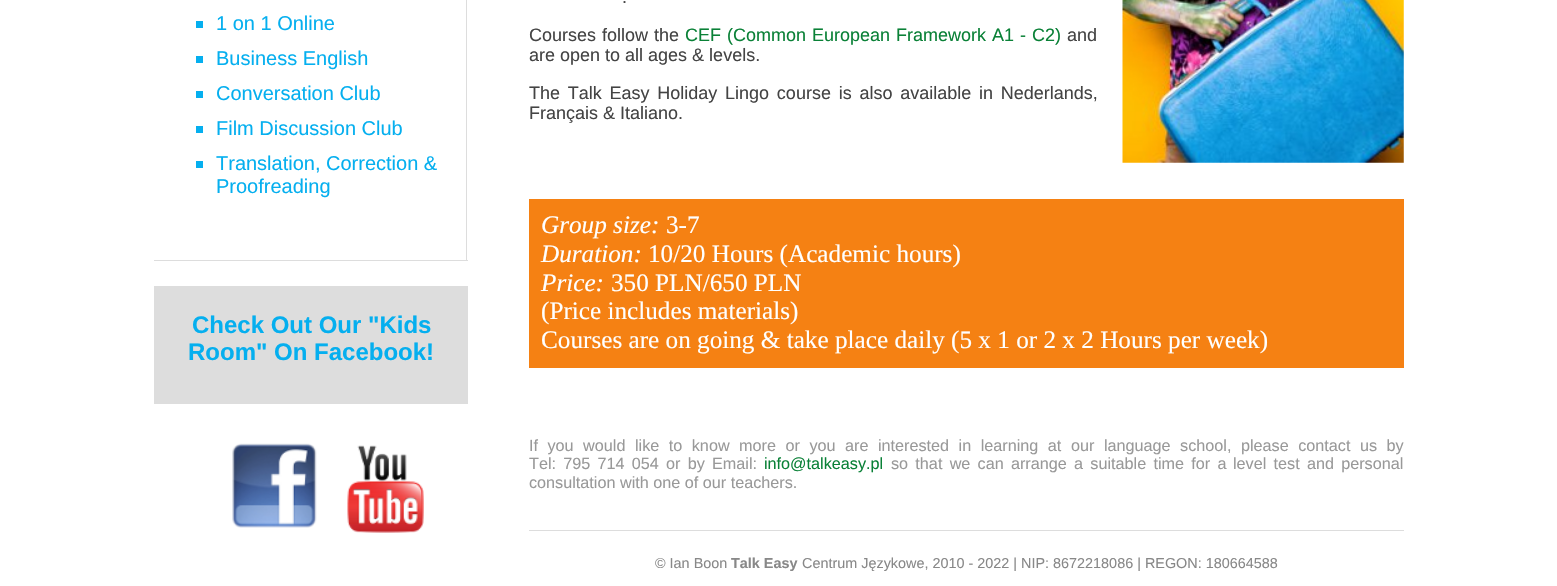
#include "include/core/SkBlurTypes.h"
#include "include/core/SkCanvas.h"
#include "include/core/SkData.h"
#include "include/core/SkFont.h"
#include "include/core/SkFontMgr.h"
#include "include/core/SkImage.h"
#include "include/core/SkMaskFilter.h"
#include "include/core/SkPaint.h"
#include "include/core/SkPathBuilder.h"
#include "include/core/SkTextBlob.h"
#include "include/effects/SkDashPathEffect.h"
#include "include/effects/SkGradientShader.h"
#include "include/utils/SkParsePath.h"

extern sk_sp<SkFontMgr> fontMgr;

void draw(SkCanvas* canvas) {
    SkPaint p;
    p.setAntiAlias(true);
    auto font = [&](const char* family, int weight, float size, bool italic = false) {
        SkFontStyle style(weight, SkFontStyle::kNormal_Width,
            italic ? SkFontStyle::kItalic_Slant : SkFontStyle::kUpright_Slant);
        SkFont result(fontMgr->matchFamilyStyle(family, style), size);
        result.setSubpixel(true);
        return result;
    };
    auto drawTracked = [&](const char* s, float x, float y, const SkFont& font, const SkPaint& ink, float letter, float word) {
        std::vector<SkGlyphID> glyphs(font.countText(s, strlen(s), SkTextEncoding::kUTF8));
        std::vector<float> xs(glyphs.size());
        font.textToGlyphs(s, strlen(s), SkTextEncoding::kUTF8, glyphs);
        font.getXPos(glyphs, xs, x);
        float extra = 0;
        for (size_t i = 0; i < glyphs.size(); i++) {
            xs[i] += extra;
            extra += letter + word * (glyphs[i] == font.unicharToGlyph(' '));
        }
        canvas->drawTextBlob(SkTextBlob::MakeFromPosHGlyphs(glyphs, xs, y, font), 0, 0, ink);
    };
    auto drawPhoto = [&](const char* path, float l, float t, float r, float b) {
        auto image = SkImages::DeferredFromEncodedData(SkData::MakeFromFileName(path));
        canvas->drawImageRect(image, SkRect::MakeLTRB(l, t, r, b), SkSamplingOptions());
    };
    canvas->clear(0xFFFFFFFF);
    {
        const struct { float l, t, r, b; SkColor color; } items[] = {
            {466, 0, 467, 261, 0xFFDDDDDD},
            {154, 260, 468, 261, 0xFFDDDDDD},
            {196, 21, 203, 28, 0xFF05AFEF},
        };
        for (auto [l, t, r, b, color] : items) {
            p.setColor(color);
            canvas->drawRect(SkRect::MakeLTRB(l, t, r, b), p);
        }
    }
    auto font1 = font("Liberation Sans", 400, 20);
    canvas->drawString("1 on 1 Online", 216, 30, font1, p);
    canvas->drawRect(SkRect::MakeLTRB(196, 56, 203, 63), p);
    canvas->drawString("Business English", 216, 65, font1, p);
    canvas->drawRect(SkRect::MakeLTRB(196, 91, 203, 98), p);
    canvas->drawString("Conversation Club", 216, 100, font1, p);
    canvas->drawRect(SkRect::MakeLTRB(196, 126, 203, 133), p);
    canvas->drawString("Film Discussion Club", 216, 135, font1, p);
    canvas->drawRect(SkRect::MakeLTRB(196, 161, 203, 168), p);
    canvas->drawString("Translation, Correction &", 216, 170, font1, p);
    canvas->drawString("Proofreading", 216, 193, font1, p);
    p.setColor(0xFFDDDDDD);
    canvas->drawRect(SkRect::MakeLTRB(154, 286, 468, 404), p);
    auto font2 = font("Liberation Sans", 700, 24);
    p.setColor(0xFF05AFEF);
    canvas->drawString("Check Out Our \"Kids", 192, 333, font2, p);
    canvas->drawString("Room\" On Facebook!", 188, 360, font2, p);
    drawPhoto("media/1.png", 232, 443, 317, 528);
    drawPhoto("media/2.png", 347, 445, 424, 533);
    auto font3 = font("Liberation Sans", 400, 18);
    p.setColor(0xFF444444);
    canvas->drawString(".", 622, 3, font3, p);
    drawPhoto("media/3.png", 1122, 0, 1404, 163);
    drawTracked("Courses follow the", 529, 41, font3, p, 0, 1);
    p.setColor(0xFF0A8137);
    drawTracked("CEF (Common European Framework A1 - C2)", 685, 41, font3, p, 0, 1);
    p.setColor(0xFF444444);
    canvas->drawString("and", 1067, 41, font3, p);
    canvas->drawString("are open to all ages & levels.", 529, 61, font3, p);
    drawTracked("The Talk Easy Holiday Lingo course is also available in Nederlands,", 529, 99, font3, p, 0, 2.75f);
    canvas->drawString("Français & Italiano.", 529, 119, font3, p);
    p.setColor(0xFFF58113);
    canvas->drawRect(SkRect::MakeLTRB(529, 199, 1404, 368), p);
    auto font4 = font("Liberation Serif", 400, 25.2f, true);
    p.setColor(0xFFFFFFFF);
    canvas->drawString("Group size:", 541, 233, font4, p);
    auto font5 = font("Liberation Serif", 400, 25.2f);
    canvas->drawString("3-7", 666, 233, font5, p);
    canvas->drawString("Duration:", 541, 262, font4, p);
    canvas->drawString("10/20 Hours (Academic hours)", 648, 262, font5, p);
    canvas->drawString("Price:", 541, 291, font4, p);
    {
        const struct { const char* s; float x, y; } items[] = {
            {"350 PLN/650 PLN", 611, 291},
            {"(Price includes materials)", 541, 319},
            {"Courses are on going & take place daily (5 x 1 or 2 x 2 Hours per week)", 541, 348},
        };
        for (auto [s, x, y] : items) {
            canvas->drawString(s, x, y, font5, p);
        }
    }
    auto font6 = font("Liberation Sans", 400, 16.2f);
    p.setColor(0xFF999999);
    drawTracked("If you would like to know more or you are interested in learning at", 529, 451, font6, p, 0, 5);
    drawTracked("our language school, please contact us by", 1071, 451, font6, p, 0, 5);
    drawTracked("Tel: 795 714 054 or by", 529, 469, font6, p, 0, 2.75f);
    canvas->drawString("Email:", 712, 469, font6, p);
    p.setColor(0xFF0A8137);
    canvas->drawString("info@talkeasy.pl", 764, 469, font6, p);
    p.setColor(0xFF999999);
    drawTracked("so that we can arrange a suitable time for a", 891, 469, font6, p, 0, 2.75f);
    drawTracked("level test and personal", 1233, 469, font6, p, 0, 2.75f);
    canvas->drawString("consultation with one of our teachers.", 529, 488, font6, p);
    p.setColor(0xFFDDDDDD);
    canvas->drawRect(SkRect::MakeLTRB(529, 530, 1404, 531), p);
    auto font7 = font("Liberation Sans", 400, 14.4f);
    p.setColor(0xFF888888);
    canvas->drawString("© Ian Boon", 655, 568, font7, p);
    auto font8 = font("Liberation Sans", 700, 14.4f);
    canvas->drawString("Talk Easy", 731, 568, font8, p);
    canvas->drawString("Centrum Językowe, 2010 - 2022 | NIP: 8672218086 | REGON: 180664588", 802, 568, font7, p);
}
